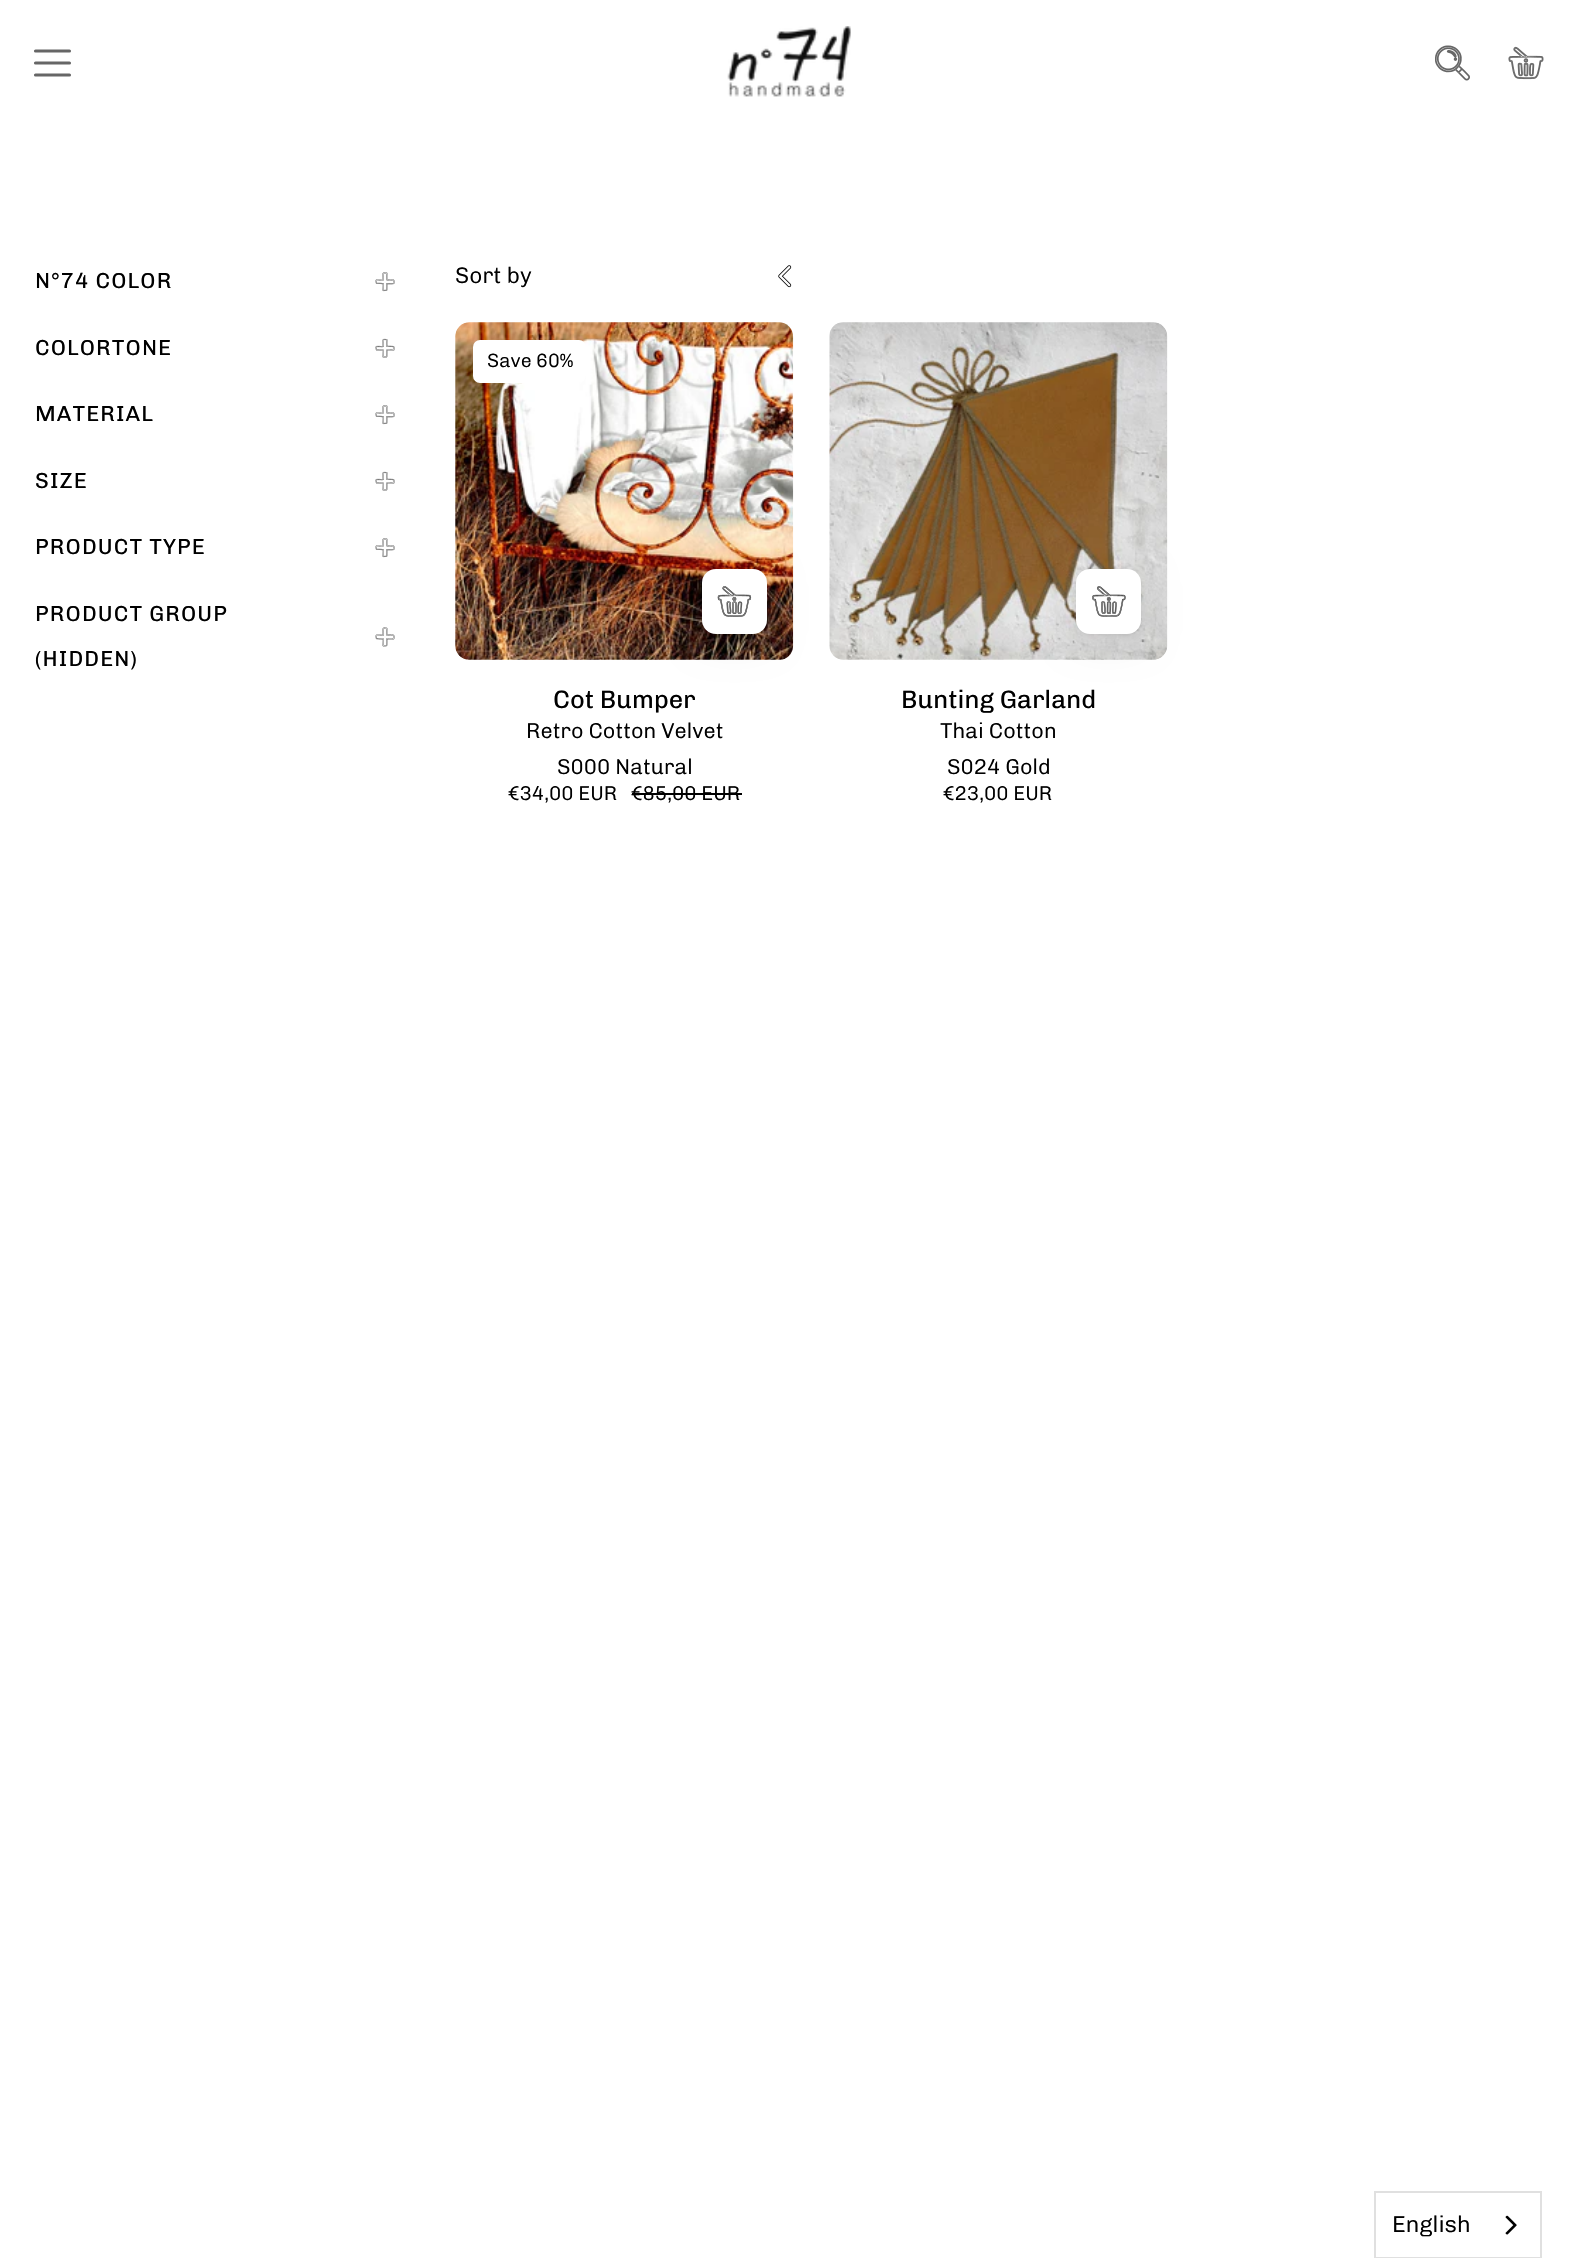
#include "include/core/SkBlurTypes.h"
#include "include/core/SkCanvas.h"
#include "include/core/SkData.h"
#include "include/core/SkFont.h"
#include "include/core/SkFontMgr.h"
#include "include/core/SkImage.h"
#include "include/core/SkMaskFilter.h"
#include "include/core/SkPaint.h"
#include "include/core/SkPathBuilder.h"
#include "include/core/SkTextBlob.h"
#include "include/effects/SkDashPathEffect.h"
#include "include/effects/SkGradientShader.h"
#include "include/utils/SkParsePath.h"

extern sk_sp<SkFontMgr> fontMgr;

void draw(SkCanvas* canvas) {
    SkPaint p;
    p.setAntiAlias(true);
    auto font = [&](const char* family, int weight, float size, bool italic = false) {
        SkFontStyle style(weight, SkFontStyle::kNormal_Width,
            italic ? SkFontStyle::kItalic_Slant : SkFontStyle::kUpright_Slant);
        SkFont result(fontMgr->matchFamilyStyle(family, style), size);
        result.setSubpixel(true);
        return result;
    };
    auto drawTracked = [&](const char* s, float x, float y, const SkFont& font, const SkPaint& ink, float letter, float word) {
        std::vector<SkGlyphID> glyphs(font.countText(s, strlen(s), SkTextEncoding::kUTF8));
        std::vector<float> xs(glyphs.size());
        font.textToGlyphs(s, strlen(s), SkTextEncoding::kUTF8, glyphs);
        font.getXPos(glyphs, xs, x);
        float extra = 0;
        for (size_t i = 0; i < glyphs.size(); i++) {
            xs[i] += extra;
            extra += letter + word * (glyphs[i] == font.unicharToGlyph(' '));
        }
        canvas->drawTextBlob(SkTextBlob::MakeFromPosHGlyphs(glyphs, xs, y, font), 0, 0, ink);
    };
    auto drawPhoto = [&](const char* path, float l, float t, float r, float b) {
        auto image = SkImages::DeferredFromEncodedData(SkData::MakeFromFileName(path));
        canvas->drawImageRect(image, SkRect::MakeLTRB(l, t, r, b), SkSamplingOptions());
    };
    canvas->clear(0xFFFFFFFF);
    p.setStyle(SkPaint::kStroke_Style);
    p.setStrokeWidth(3.1f);
    p.setStrokeCap(SkPaint::kRound_Cap);
    p.setStrokeJoin(SkPaint::kRound_Join);
    p.setColor(0xFF666666);
    canvas->drawPath(SkPathBuilder().moveTo(35.5f, 63).lineTo(69.5f, 63).moveTo(35.5f, 51).lineTo(69.5f, 51).moveTo(35.5f, 75).lineTo(69.5f, 75).detach(), p);
    drawPhoto("media/1.png", 727, 26, 851, 97);
    drawPhoto("media/2.png", 1435, 45, 1470, 81);
    drawPhoto("media/3.png", 1508, 46, 1544, 80);
    auto font1 = font("Chivo", 400, 21.75f);
    p.setStyle(SkPaint::kFill_Style);
    p.setColor(0xFF000000);
    drawTracked("N°74 COLOR", 35, 288, font1, p, 1.1f, 0);
    drawPhoto("media/4.png", 375, 272, 395, 292);
    drawTracked("COLORTONE", 35, 355, font1, p, 1.1f, 0);
    drawPhoto("media/5.png", 375, 338, 395, 358);
    drawTracked("MATERIAL", 35, 421, font1, p, 1.1f, 0);
    drawPhoto("media/4.png", 375, 405, 395, 425);
    drawTracked("SIZE", 35, 488, font1, p, 1.1f, 0);
    drawPhoto("media/5.png", 375, 471, 395, 491);
    drawTracked("PRODUCT TYPE", 35, 554, font1, p, 1.1f, 0);
    drawPhoto("media/4.png", 375, 538, 395, 558);
    drawTracked("PRODUCT GROUP", 35, 621, font1, p, 1.1f, 0);
    drawPhoto("media/6.png", 375, 627, 395, 647);
    drawTracked("(HIDDEN)", 35, 666, font1, p, 1.1f, 0);
    auto font2 = font("Chivo", 300, 22.5f);
    canvas->drawString("Sort by", 455, 283, font2, p);
    drawPhoto("media/7.png", 778, 265, 792, 288);
    drawPhoto("media/8.png", 455, 322, 794, 660);
    p.setColor(0xFFFFFFFF);
    canvas->drawRoundRect(SkRect::MakeLTRB(473, 340, 586, 383), 7, 7, p);
    auto font3 = font("Chivo", 300, 19.25f);
    p.setColor(0xFF000000);
    canvas->drawString("Save 60%", 487, 367, font3, p);
    p.setColor(0x12000000);
    p.setMaskFilter(SkMaskFilter::MakeBlur(kNormal_SkBlurStyle, 2.5f));
    canvas->drawRoundRect(SkRect::MakeLTRB(702, 571, 767, 635), 14, 14, p);
    p.setMaskFilter(nullptr);
    p.setColor(0x1A000000);
    p.setMaskFilter(SkMaskFilter::MakeBlur(kNormal_SkBlurStyle, 17.5f));
    canvas->drawRoundRect(SkRect::MakeLTRB(702, 576, 767, 641), 14, 14, p);
    p.setMaskFilter(nullptr);
    p.setColor(0xFFFFFFFF);
    canvas->drawRoundRect(SkRect::MakeLTRB(702, 569, 767, 634), 14, 14, p);
    drawPhoto("media/9.png", 717, 586, 752, 617);
    auto font4 = font("Chivo", 400, 25.25f);
    p.setColor(0xFF000000);
    canvas->drawString("Cot Bumper", 553, 708, font4, p);
    auto font5 = font("Chivo", 300, 21.5f);
    canvas->drawString("Retro Cotton Velvet", 526, 738, font5, p);
    canvas->drawString("S000 Natural", 557, 774, font5, p);
    auto font6 = font("Chivo", 300, 20);
    canvas->drawString("€34,00 EUR", 508, 800, font6, p);
    canvas->drawString("€85,00 EUR", 631, 800, font6, p);
    canvas->drawRect(SkRect::MakeLTRB(632, 793, 742, 795), p);
    drawPhoto("media/10.png", 829, 322, 1168, 660);
    p.setColor(0x12000000);
    p.setMaskFilter(SkMaskFilter::MakeBlur(kNormal_SkBlurStyle, 2.5f));
    canvas->drawRoundRect(SkRect::MakeLTRB(1076, 571, 1141, 635), 14, 14, p);
    p.setMaskFilter(nullptr);
    p.setColor(0x1A000000);
    p.setMaskFilter(SkMaskFilter::MakeBlur(kNormal_SkBlurStyle, 17.5f));
    canvas->drawRoundRect(SkRect::MakeLTRB(1076, 576, 1141, 641), 14, 14, p);
    p.setMaskFilter(nullptr);
    p.setColor(0xFFFFFFFF);
    canvas->drawRoundRect(SkRect::MakeLTRB(1076, 569, 1141, 634), 14, 14, p);
    drawPhoto("media/11.png", 1092, 586, 1126, 617);
    p.setColor(0xFF000000);
    canvas->drawString("Bunting Garland", 901, 708, font4, p);
    canvas->drawString("Thai Cotton", 940, 738, font5, p);
    canvas->drawString("S024 Gold", 947, 774, font5, p);
    canvas->drawString("€23,00 EUR", 943, 800, font6, p);
    p.setStyle(SkPaint::kStroke_Style);
    p.setStrokeWidth(2);
    p.setStrokeCap(SkPaint::kButt_Cap);
    p.setStrokeJoin(SkPaint::kMiter_Join);
    p.setColor(0xFFE0E0E0);
    canvas->drawRect(SkRect::MakeLTRB(1375, 2192, 1541, 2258), p);
    auto font7 = font("Chivo", 300, 23);
    p.setStyle(SkPaint::kFill_Style);
    p.setColor(0xFF000000);
    canvas->drawString("English", 1392, 2232, font7, p);
    drawPhoto("media/12.png", 1505, 2215, 1517, 2235);
}
